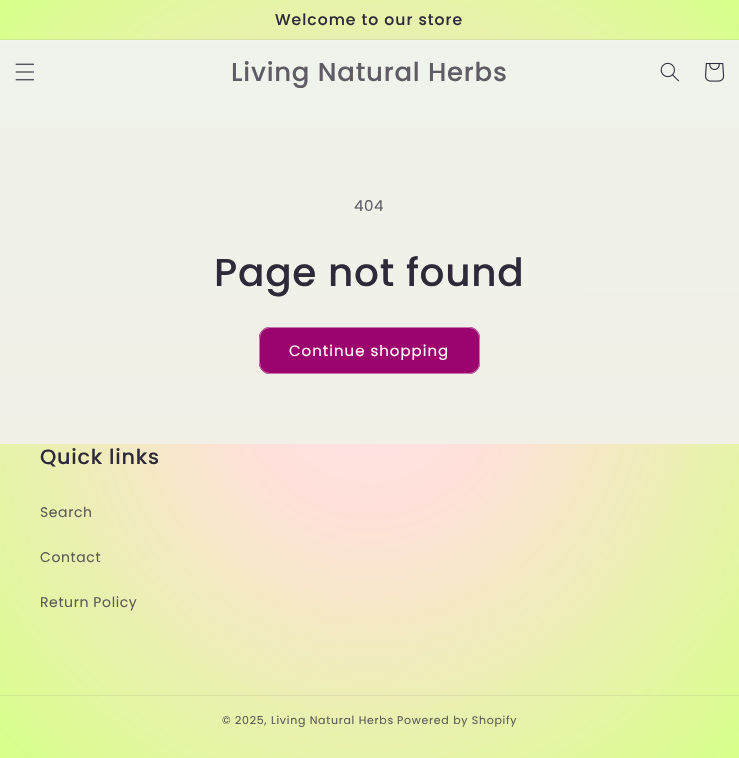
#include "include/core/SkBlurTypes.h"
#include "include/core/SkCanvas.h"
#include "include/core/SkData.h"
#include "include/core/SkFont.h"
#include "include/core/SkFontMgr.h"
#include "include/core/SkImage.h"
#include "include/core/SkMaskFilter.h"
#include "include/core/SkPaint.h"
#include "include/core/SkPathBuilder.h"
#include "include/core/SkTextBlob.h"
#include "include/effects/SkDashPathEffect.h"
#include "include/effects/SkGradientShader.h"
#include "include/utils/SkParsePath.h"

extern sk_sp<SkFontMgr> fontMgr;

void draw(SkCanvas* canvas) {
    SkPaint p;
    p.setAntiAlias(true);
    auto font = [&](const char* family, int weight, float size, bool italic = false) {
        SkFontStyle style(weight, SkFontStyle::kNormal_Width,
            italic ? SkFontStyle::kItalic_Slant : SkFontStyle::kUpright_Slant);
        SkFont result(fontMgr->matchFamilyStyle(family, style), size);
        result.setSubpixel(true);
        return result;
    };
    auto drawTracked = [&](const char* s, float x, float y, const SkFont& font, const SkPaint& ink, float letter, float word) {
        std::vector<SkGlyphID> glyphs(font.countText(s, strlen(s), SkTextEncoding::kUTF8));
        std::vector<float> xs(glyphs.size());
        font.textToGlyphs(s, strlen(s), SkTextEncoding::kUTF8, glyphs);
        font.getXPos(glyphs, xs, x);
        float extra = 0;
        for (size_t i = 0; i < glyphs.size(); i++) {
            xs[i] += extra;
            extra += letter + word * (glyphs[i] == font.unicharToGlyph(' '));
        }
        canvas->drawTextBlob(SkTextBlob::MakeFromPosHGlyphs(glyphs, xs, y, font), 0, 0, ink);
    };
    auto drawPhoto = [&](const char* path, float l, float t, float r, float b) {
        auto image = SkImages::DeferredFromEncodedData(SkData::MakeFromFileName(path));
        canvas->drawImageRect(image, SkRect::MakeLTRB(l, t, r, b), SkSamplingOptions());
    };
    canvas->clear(0xFFFFFFFF);
    {
        const SkColor colors[] = {0xFFF0F4EC, 0xFFF1EBE2};
        const float stops[] = {0, 1};
        const SkPoint ends[] = {{369, 0}, {370, 758}};
        p.setShader(SkGradientShader::MakeLinear(ends, colors, stops, 2, SkTileMode::kClamp));
        p.setAlpha(255);
    }
    canvas->drawRect(SkRect::MakeLTRB(0, 40, 739, 444), p);
    {
        const SkColor colors[] = {0xFFFFE5E5, 0xFFFFE0DA, 0xFFD7FF89};
        const float stops[] = {0, 0.25f, 1};
        SkMatrix m = SkMatrix::Translate(370, 379).preScale(523, 536);
        p.setShader(SkGradientShader::MakeRadial({0, 0}, 1, colors, stops, 3, SkTileMode::kClamp, 0, &m));
        p.setAlpha(255);
    }
    canvas->drawRect(SkRect::MakeLTRB(0, 0, 739, 39), p);
    {
        const SkColor colors[] = {0xFFEED6D7, 0xFFEED1CD, 0xFFC9EE83};
        const float stops[] = {0, 0.25f, 1};
        SkMatrix m = SkMatrix::Translate(370, 379).preScale(523, 536);
        p.setShader(SkGradientShader::MakeRadial({0, 0}, 1, colors, stops, 3, SkTileMode::kClamp, 0, &m));
        p.setAlpha(255);
    }
    canvas->drawRect(SkRect::MakeLTRB(0, 39, 739, 40), p);
    auto font1 = font("Poppins", 500, 15.6f);
    p.setShader(nullptr);
    p.setColor(0xFF2E2A39);
    drawTracked("Welcome to our store", 275, 25, font1, p, 1, 0);
    drawPhoto("media/1.png", 15, 63, 35, 81);
    auto font2 = font("Poppins", 500, 26);
    p.setColor(0xFF5F5C65);
    drawTracked("Living Natural Herbs", 231, 81, font2, p, 0.75f, 0);
    drawPhoto("media/2.png", 660, 62, 679, 82);
    drawPhoto("media/3.png", 705, 63, 725, 82);
    auto font3 = font("Poppins", 400, 15);
    drawTracked("404", 354, 211, font3, p, 0.6f, 0);
    auto font4 = font("Poppins", 500, 39);
    p.setColor(0xFF2E2A39);
    drawTracked("Page not found", 214, 286, font4, p, 0.75f, 0);
    p.setColor(0xFF9B046F);
    canvas->drawRoundRect(SkRect::MakeLTRB(259, 327, 480, 374), 11, 11, p);
    p.setStyle(SkPaint::kStroke_Style);
    p.setStrokeWidth(1);
    canvas->drawRoundRect(SkRect::MakeLTRB(259.5f, 327.5f, 479.5f, 373.5f), 10.5f, 10.5f, p);
    p.setColor(0x73FDFBF7);
    canvas->drawRoundRect(SkRect::MakeLTRB(259.5f, 327.5f, 479.5f, 373.5f), 10.5f, 10.5f, p);
    p.setStyle(SkPaint::kFill_Style);
    p.setColor(0xFFFDFBF7);
    drawTracked("Continue shopping", 289, 356, font3, p, 1, 0);
    {
        const SkColor colors[] = {0xFFFFE5E5, 0xFFFFE0DA, 0xFFD7FF89};
        const float stops[] = {0, 0.25f, 1};
        SkMatrix m = SkMatrix::Translate(370, 379).preScale(523, 536);
        p.setShader(SkGradientShader::MakeRadial({0, 0}, 1, colors, stops, 3, SkTileMode::kClamp, 0, &m));
        p.setAlpha(255);
    }
    canvas->drawRect(SkRect::MakeLTRB(0, 444, 739, 758), p);
    {
        const SkColor colors[] = {0xFFEED6D7, 0xFFEED1CD, 0xFFC9EE83};
        const float stops[] = {0, 0.25f, 1};
        SkMatrix m = SkMatrix::Translate(370, 379).preScale(523, 536);
        p.setShader(SkGradientShader::MakeRadial({0, 0}, 1, colors, stops, 3, SkTileMode::kClamp, 0, &m));
        p.setAlpha(255);
    }
    canvas->drawRect(SkRect::MakeLTRB(0, 695, 739, 696), p);
    auto font5 = font("Poppins", 500, 20.75f);
    p.setShader(nullptr);
    p.setColor(0xFF2E2A39);
    drawTracked("Quick links", 40, 464, font5, p, 0.75f, 0);
    auto font6 = font("Poppins", 400, 14);
    p.setColor(0xFF5D5B57);
    {
        const struct { const char* s; float x, y; } items[] = {
            {"Search", 40, 517},
            {"Contact", 40, 562},
            {"Return Policy", 40, 607},
        };
        for (auto [s, x, y] : items) {
            drawTracked(s, x, y, font6, p, 0.6f, 0);
        }
    }
    auto font7 = font("Poppins", 400, 11);
    {
        const struct { const char* s; float x, y; } items[] = {
            {"© 2025,", 222, 724},
            {"Living Natural Herbs", 271, 724},
            {"Powered by Shopify", 397, 724},
        };
        for (auto [s, x, y] : items) {
            drawTracked(s, x, y, font7, p, 0.7f, 0);
        }
    }
}
